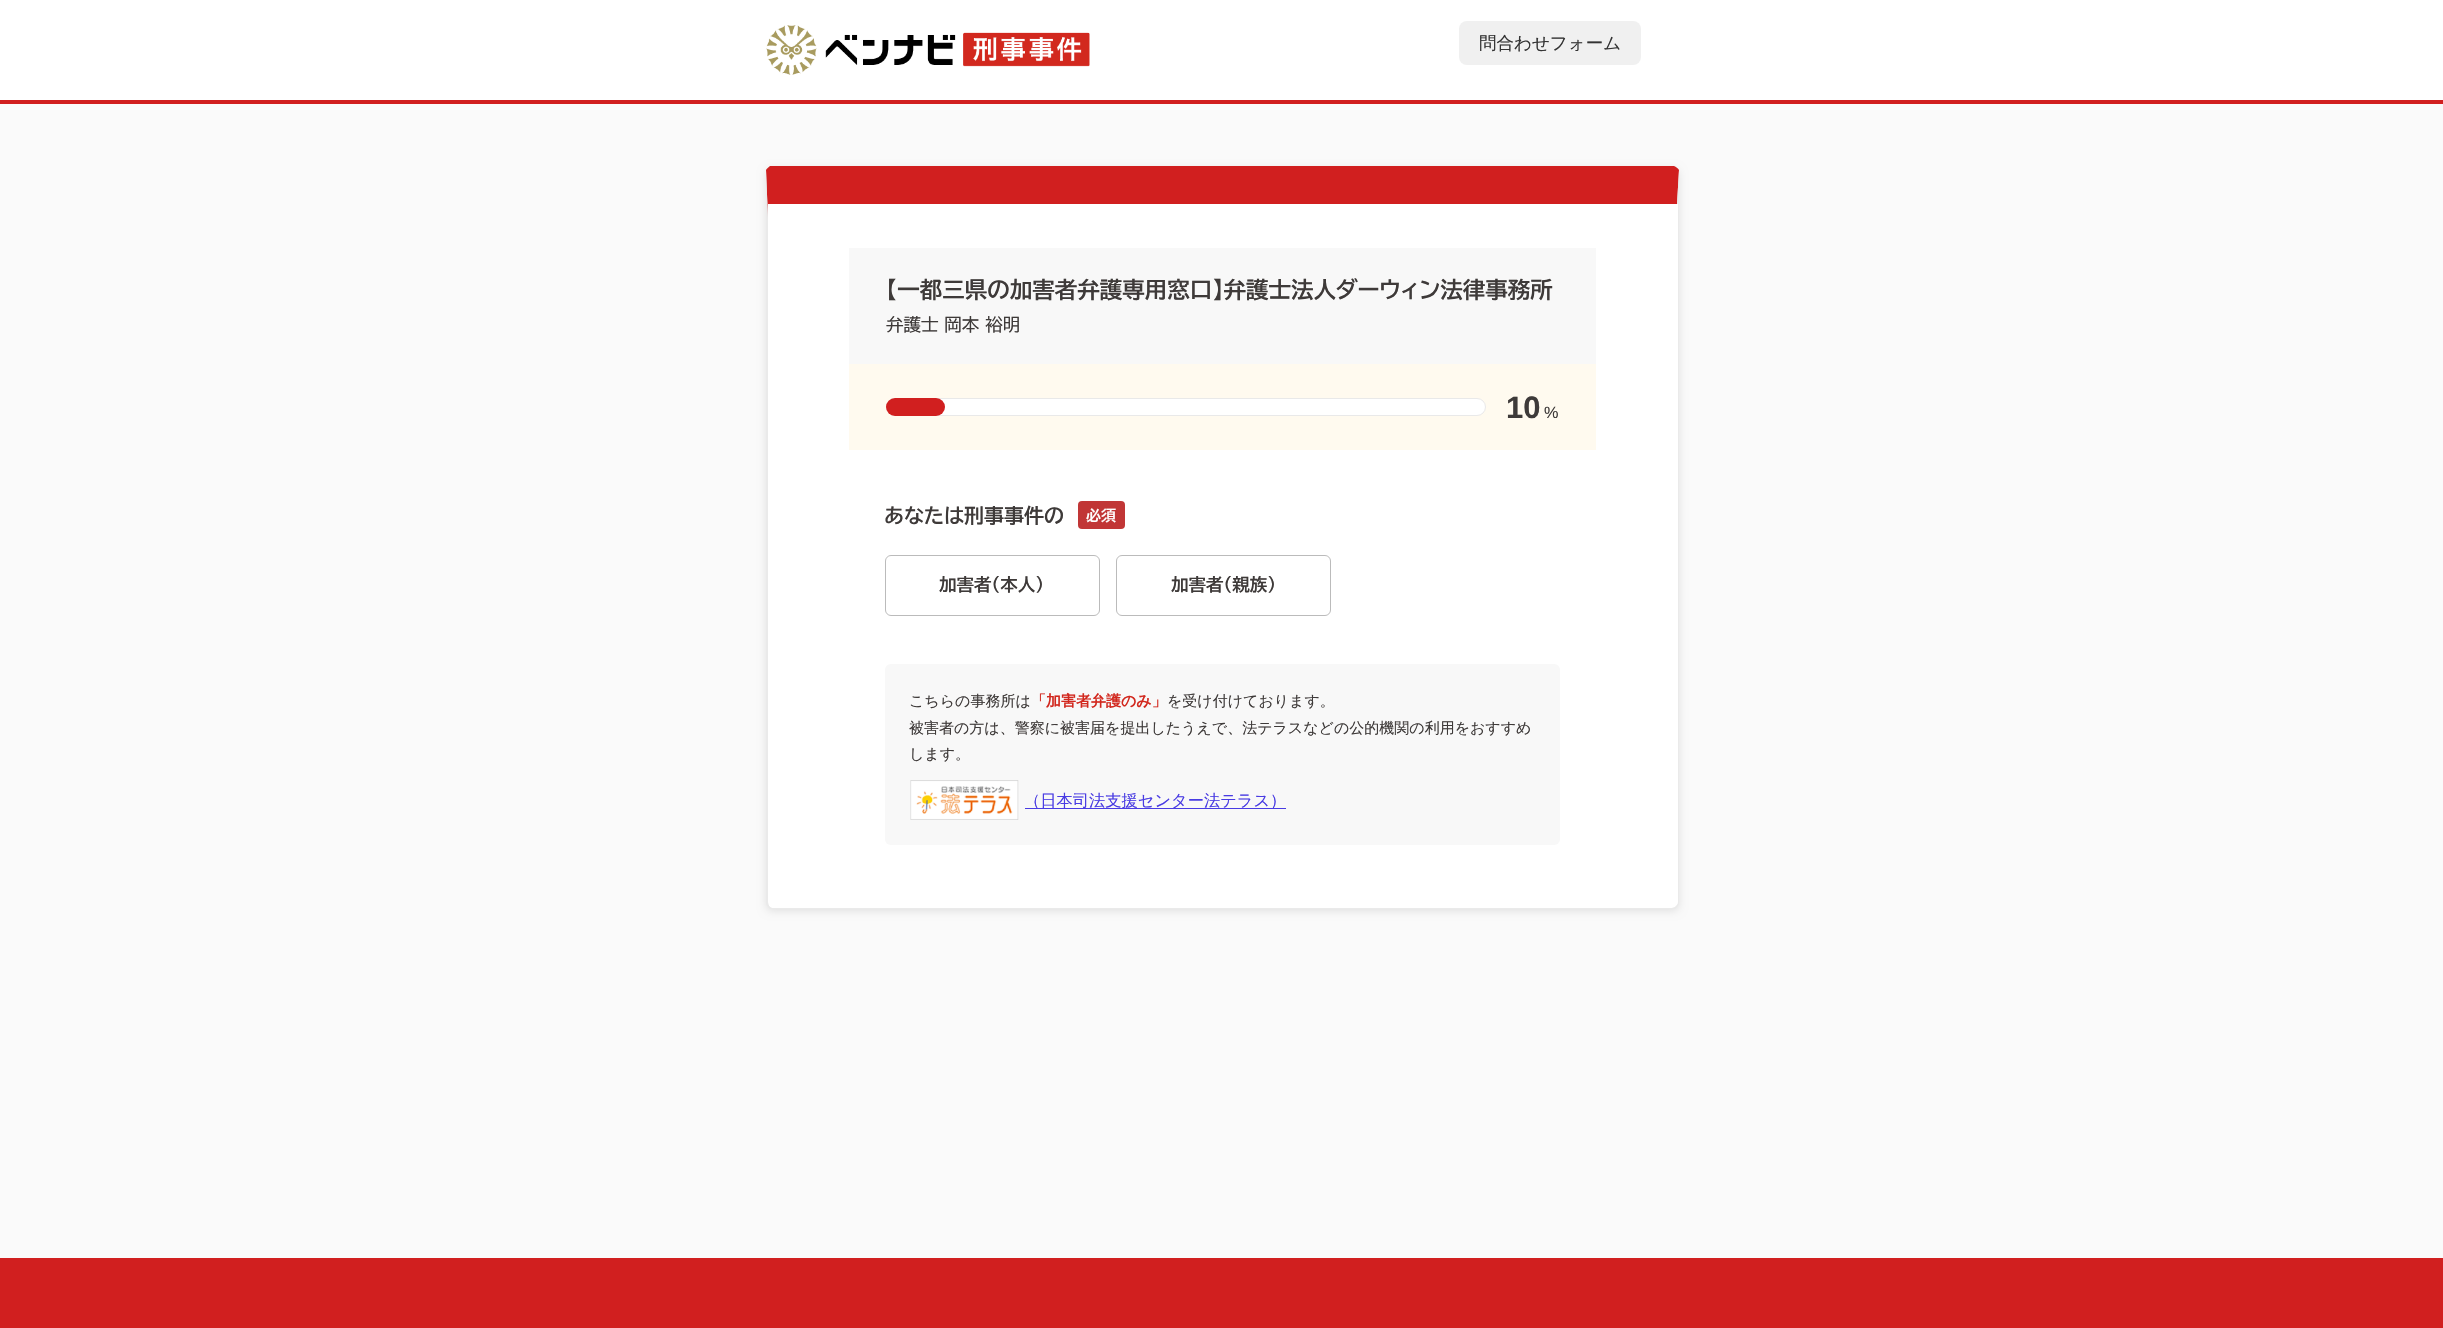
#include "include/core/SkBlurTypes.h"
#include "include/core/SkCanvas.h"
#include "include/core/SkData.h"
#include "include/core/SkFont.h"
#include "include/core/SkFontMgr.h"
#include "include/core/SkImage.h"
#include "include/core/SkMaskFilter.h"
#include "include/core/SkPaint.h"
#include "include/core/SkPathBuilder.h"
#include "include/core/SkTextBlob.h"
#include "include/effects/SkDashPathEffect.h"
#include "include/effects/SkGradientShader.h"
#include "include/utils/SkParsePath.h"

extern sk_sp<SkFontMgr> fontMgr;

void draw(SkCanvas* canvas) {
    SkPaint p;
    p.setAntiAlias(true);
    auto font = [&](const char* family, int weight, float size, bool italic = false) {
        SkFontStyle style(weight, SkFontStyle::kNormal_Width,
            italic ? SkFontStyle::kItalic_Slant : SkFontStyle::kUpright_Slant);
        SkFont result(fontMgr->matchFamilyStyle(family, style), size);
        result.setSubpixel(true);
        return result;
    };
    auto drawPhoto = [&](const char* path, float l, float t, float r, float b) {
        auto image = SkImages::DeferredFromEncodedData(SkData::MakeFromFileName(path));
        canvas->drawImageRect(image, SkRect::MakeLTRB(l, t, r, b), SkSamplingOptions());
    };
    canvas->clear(0xFFFAFAFA);
    p.setColor(0xFFFFFFFF);
    canvas->drawRect(SkRect::MakeLTRB(0, 0, 2443, 100), p);
    p.setColor(0xFFD11F1F);
    canvas->drawRect(SkRect::MakeLTRB(0, 100, 2443, 104), p);
    drawPhoto("media/1.png", 766, 25, 1090, 75);
    p.setColor(0xFFF0F0F0);
    canvas->drawRoundRect(SkRect::MakeLTRB(1459, 21, 1641, 65), 8, 8, p);
    auto font1 = font("WenQuanYi Zen Hei", 500, 17.5f);
    p.setColor(0xFF333333);
    canvas->drawString("問合わせフォーム", 1479, 49, font1, p);
    p.setColor(0x1A000000);
    p.setMaskFilter(SkMaskFilter::MakeBlur(kNormal_SkBlurStyle, 4));
    canvas->drawRoundRect(SkRect::MakeLTRB(766, 169, 1679, 911), 6, 6, p);
    p.setMaskFilter(nullptr);
    p.setColor(0xFFFFFFFF);
    canvas->drawPath(SkPathBuilder().moveTo(772, 204).lineTo(1678, 204).lineTo(1678, 902).cubicTo(1678, 905, 1675, 908, 1672, 908).lineTo(772, 908).cubicTo(770, 908, 768, 905, 768, 902).lineTo(768, 204).close().detach(), p);
    p.setColor(0xFFD11F1F);
    canvas->drawPath(SkPathBuilder().moveTo(766, 170).cubicTo(767, 168, 769, 167, 770, 166).lineTo(1674, 166).cubicTo(1676, 167, 1678, 168, 1679, 170).lineTo(1677, 204).lineTo(768, 204).lineTo(768, 219).close().detach(), p);
    p.setColor(0xFFEAEAEA);
    canvas->drawPath(SkPathBuilder().moveTo(1679, 904).lineTo(1677, 907).lineTo(1676, 906).lineTo(1678, 904).lineTo(1678, 204).lineTo(1677, 204).lineTo(1679, 170).close().detach(), p);
    canvas->drawPath(SkPathBuilder().moveTo(770, 909).lineTo(768, 907).lineTo(769, 906).cubicTo(770, 907, 771, 908, 772, 908).lineTo(1672, 908).cubicTo(1674, 908, 1675, 907, 1676, 906).lineTo(1677, 907).lineTo(1674, 909).close().detach(), p);
    canvas->drawPath(SkPathBuilder().moveTo(766, 170).lineTo(768, 219).lineTo(768, 902).cubicTo(768, 903, 768, 905, 769, 906).lineTo(768, 907).lineTo(766, 904).close().detach(), p);
    p.setColor(0xFFF8F8F8);
    canvas->drawRect(SkRect::MakeLTRB(849, 248, 1596, 364), p);
    auto font2 = font("BIZ UDPGothic", 700, 22.5f);
    p.setColor(0xFF3E3A39);
    canvas->drawString("【一都三県の加害者弁護専用窓口】弁護士法人ダーウィン法律事務所", 886, 298, font2, p);
    auto font3 = font("BIZ UDPGothic", 400, 17.5f);
    canvas->drawString("弁護士 岡本 裕明", 886, 331, font3, p);
    p.setColor(0xFFFFFAEF);
    canvas->drawRect(SkRect::MakeLTRB(849, 364, 1596, 450), p);
    p.setColor(0xFFFFFFFF);
    canvas->drawRoundRect(SkRect::MakeLTRB(886.5f, 398.5f, 1485.5f, 415.5f), 8.5f, 8.5f, p);
    p.setStyle(SkPaint::kStroke_Style);
    p.setStrokeWidth(1);
    p.setColor(0xFFE9E9E9);
    canvas->drawRoundRect(SkRect::MakeLTRB(886.5f, 398.5f, 1485.5f, 415.5f), 8.5f, 8.5f, p);
    p.setStyle(SkPaint::kFill_Style);
    p.setColor(0xFFD11F1F);
    canvas->drawRoundRect(SkRect::MakeLTRB(886, 398, 945, 416), 9, 9, p);
    auto font4 = font("Liberation Sans", 700, 31);
    p.setColor(0xFF3E3A39);
    canvas->drawString("10", 1506, 418, font4, p);
    auto font5 = font("Liberation Sans", 400, 16.25f);
    canvas->drawString("%", 1544, 418, font5, p);
    auto font6 = font("BIZ UDPGothic", 700, 20);
    canvas->drawString("あなたは刑事事件の", 884, 523, font6, p);
    p.setColor(0xFFC13636);
    canvas->drawRoundRect(SkRect::MakeLTRB(1078, 501, 1125, 529), 4, 4, p);
    auto font7 = font("BIZ UDPGothic", 700, 15);
    p.setColor(0xFFFFFFFF);
    canvas->drawString("必須", 1086, 521, font7, p);
    p.setStyle(SkPaint::kStroke_Style);
    p.setColor(0xFFBBBBBB);
    canvas->drawRoundRect(SkRect::MakeLTRB(885.5f, 555.5f, 1099.5f, 615.5f), 5.5f, 5.5f, p);
    auto font8 = font("BIZ UDPGothic", 700, 17.5f);
    p.setStyle(SkPaint::kFill_Style);
    p.setColor(0xFF3E3A39);
    canvas->drawString("加害者（本人）", 939, 591, font8, p);
    p.setStyle(SkPaint::kStroke_Style);
    p.setColor(0xFFBBBBBB);
    canvas->drawRoundRect(SkRect::MakeLTRB(1116.5f, 555.5f, 1330.5f, 615.5f), 5.5f, 5.5f, p);
    p.setStyle(SkPaint::kFill_Style);
    p.setColor(0xFF3E3A39);
    canvas->drawString("加害者（親族）", 1171, 591, font8, p);
    p.setColor(0xFFF8F8F8);
    canvas->drawRoundRect(SkRect::MakeLTRB(885, 664, 1560, 845), 6, 6, p);
    auto font9 = font("WenQuanYi Zen Hei", 500, 15);
    p.setColor(0xFF3E3A39);
    canvas->drawString("こちらの事務所は", 909, 706, font9, p);
    auto font10 = font("WenQuanYi Zen Hei", 700, 15);
    p.setColor(0xFFD2281E);
    canvas->drawString("「加害者弁護のみ」", 1031, 706, font10, p);
    p.setColor(0xFF3E3A39);
    {
        const struct { const char* s; float x, y; } items[] = {
            {"を受け付けております。", 1167, 706},
            {"被害者の方は、警察に被害届を提出したうえで、法テラスなどの公的機関の利用をおすすめ", 909, 733},
            {"します。", 909, 759},
        };
        for (auto [s, x, y] : items) {
            canvas->drawString(s, x, y, font9, p);
        }
    }
    drawPhoto("media/2.png", 910, 780, 1019, 820);
    p.setColor(0xFF493CE3);
    canvas->drawRect(SkRect::MakeLTRB(1025, 808, 1286, 809), p);
    auto font11 = font("WenQuanYi Zen Hei", 500, 16.25f);
    canvas->drawString("（日本司法支援センター法テラス）", 1024, 806, font11, p);
    p.setColor(0xFFD11F1F);
    canvas->drawRect(SkRect::MakeLTRB(0, 1258, 2443, 1328), p);
}
